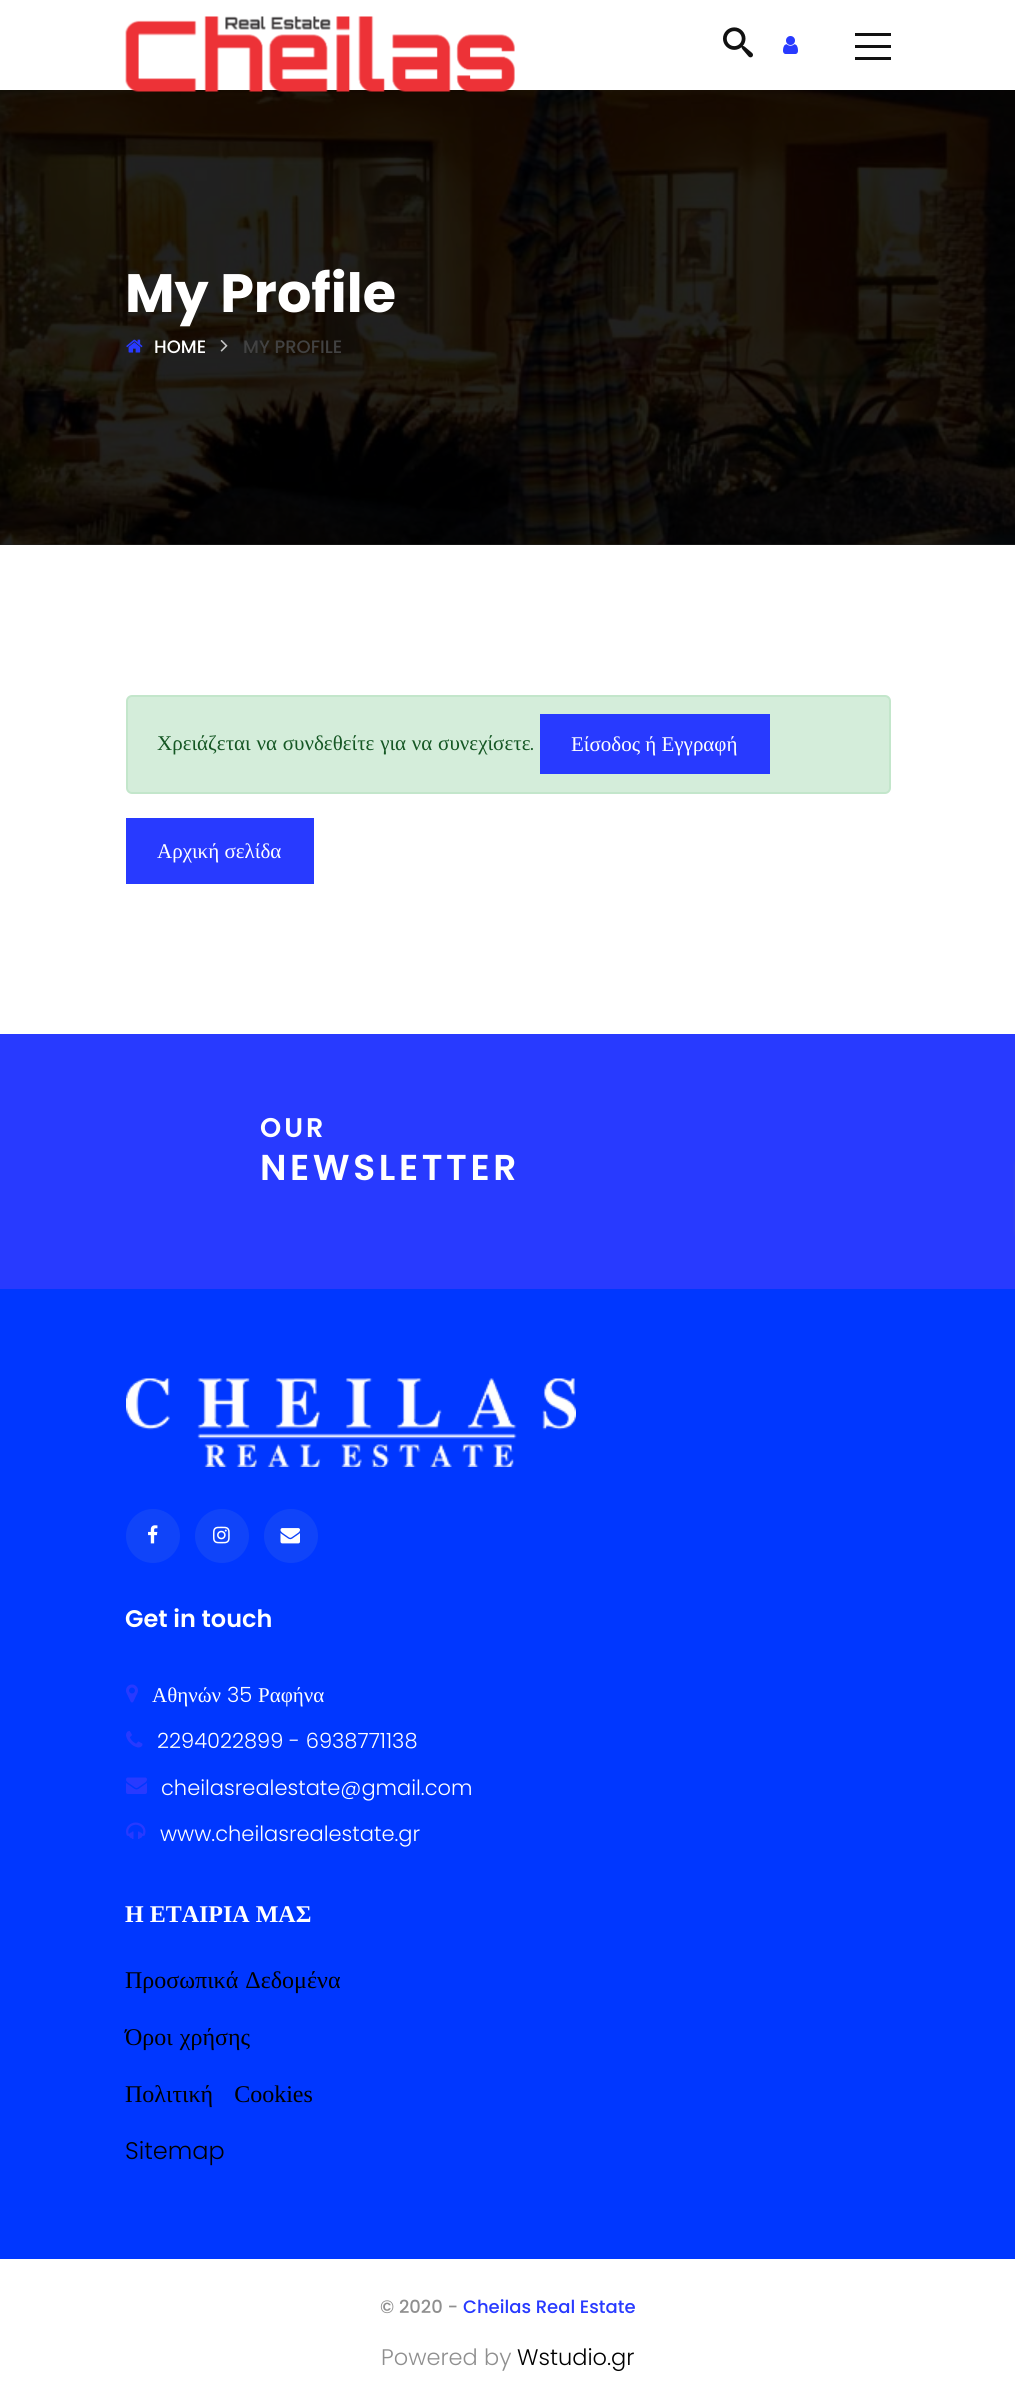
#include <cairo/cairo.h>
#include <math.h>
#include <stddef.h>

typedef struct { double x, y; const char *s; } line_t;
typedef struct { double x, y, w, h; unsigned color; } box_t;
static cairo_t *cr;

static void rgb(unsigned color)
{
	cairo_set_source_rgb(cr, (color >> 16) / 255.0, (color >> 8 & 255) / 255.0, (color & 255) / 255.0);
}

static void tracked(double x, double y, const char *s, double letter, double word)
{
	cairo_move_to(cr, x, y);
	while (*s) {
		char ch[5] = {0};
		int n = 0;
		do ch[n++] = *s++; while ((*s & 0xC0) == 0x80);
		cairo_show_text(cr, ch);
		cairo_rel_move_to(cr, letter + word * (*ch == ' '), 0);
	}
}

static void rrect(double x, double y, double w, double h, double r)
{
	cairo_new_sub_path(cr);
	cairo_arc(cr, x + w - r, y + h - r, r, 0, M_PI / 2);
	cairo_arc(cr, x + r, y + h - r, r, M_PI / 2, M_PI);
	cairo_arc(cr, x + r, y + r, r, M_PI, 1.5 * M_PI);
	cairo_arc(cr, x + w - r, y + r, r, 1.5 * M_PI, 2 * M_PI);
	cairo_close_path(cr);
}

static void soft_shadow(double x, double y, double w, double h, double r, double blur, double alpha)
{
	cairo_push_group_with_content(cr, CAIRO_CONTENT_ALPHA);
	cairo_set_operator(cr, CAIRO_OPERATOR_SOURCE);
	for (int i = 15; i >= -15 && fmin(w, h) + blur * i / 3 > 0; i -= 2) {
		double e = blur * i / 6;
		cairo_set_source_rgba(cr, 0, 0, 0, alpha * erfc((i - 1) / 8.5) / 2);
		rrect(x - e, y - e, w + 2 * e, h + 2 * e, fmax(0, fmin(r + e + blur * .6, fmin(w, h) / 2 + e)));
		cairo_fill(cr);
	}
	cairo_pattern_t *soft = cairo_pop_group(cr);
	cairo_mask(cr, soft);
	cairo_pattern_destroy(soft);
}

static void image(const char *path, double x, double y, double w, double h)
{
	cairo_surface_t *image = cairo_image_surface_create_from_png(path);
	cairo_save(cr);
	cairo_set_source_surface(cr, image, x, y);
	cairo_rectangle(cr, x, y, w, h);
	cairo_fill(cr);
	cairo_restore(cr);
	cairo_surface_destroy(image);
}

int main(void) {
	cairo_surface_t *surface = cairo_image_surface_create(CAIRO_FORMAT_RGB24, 1015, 2394);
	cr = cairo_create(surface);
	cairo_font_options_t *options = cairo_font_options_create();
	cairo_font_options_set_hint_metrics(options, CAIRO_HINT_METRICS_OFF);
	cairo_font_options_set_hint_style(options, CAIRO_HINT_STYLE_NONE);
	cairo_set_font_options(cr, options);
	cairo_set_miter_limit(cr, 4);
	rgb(0xffffff);
	cairo_paint(cr);
	rgb(0x212121);
	cairo_rectangle(cr, 0, 544, 1015, 1);
	cairo_fill(cr);
	image("img/4.png", 0, 90, 1015, 455);
	rgb(0x000000);
	soft_shadow(-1, -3, 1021, 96, 0, 2, 0.1);
	rgb(0xffffff);
	cairo_rectangle(cr, 0, 0, 1015, 90);
	cairo_fill(cr);
	image("img/1.png", 125, 16, 390, 76);
	image("img/2.png", 723, 27, 30, 31);
	image("img/3.png", 783, 36, 15, 18);
	{
		static const box_t items[] = {
			{855, 33, 36, 3, 0x111111},
			{855, 45, 36, 3, 0x111111},
			{855, 57, 36, 3, 0x111111},
		};
		for (size_t i = 0; i < sizeof items / sizeof *items; i++) {
			rgb(items[i].color);
			cairo_rectangle(cr, items[i].x, items[i].y, items[i].w, items[i].h);
			cairo_fill(cr);
		}
	}
	image("img/5.png", 126, 339, 17, 14);
	image("img/6.png", 220, 340, 8, 12);
	rgb(0xd4edda);
	rrect(127, 696, 763, 97, 5);
	cairo_fill_preserve(cr);
	rgb(0xc3e6cb);
	cairo_stroke(cr);
	{
		static const box_t items[] = {
			{540, 714, 230, 60, 0x283aff},
			{126, 818, 188, 66, 0x283aff},
			{0, 1289, 1015, 970, 0x0037ff},
			{0, 1034, 1015, 255, 0x283aff},
		};
		for (size_t i = 0; i < sizeof items / sizeof *items; i++) {
			rgb(items[i].color);
			cairo_rectangle(cr, items[i].x, items[i].y, items[i].w, items[i].h);
			cairo_fill(cr);
		}
	}
	image("img/7.png", 126, 1378, 450, 89);
	rgb(0x1044f9);
	cairo_arc(cr, 153, 1536, 27, 0, 2 * M_PI);
	cairo_fill(cr);
	image("img/8.png", 148, 1525, 10, 19);
	cairo_arc(cr, 222, 1536, 27, 0, 2 * M_PI);
	cairo_fill(cr);
	image("img/9.png", 213, 1526, 17, 18);
	cairo_arc(cr, 291, 1536, 27, 0, 2 * M_PI);
	cairo_fill(cr);
	image("img/10.png", 280, 1528, 20, 16);
	image("img/11.png", 126, 1684, 12, 19);
	image("img/12.png", 126, 1731, 17, 17);
	image("img/13.png", 126, 1777, 21, 17);
	image("img/14.png", 126, 1822, 20, 17);
	rgb(0x777777);
	soft_shadow(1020, 1164, 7, 69, 0, 4, 1);
	cairo_select_font_face(cr, "Poppins", CAIRO_FONT_SLANT_NORMAL, CAIRO_FONT_WEIGHT_BOLD);
	cairo_set_font_size(cr, 54);
	rgb(0xffffff);
	cairo_move_to(cr, 125, 312);
	cairo_show_text(cr, "My Profile");
	cairo_select_font_face(cr, "Poppins Medium", CAIRO_FONT_SLANT_NORMAL, CAIRO_FONT_WEIGHT_NORMAL);
	cairo_set_font_size(cr, 18);
	cairo_move_to(cr, 154, 353);
	cairo_show_text(cr, "HOME");
	rgb(0x424242);
	cairo_move_to(cr, 243, 353);
	cairo_show_text(cr, "MY PROFILE");
	cairo_select_font_face(cr, "Liberation Serif", CAIRO_FONT_SLANT_NORMAL, CAIRO_FONT_WEIGHT_NORMAL);
	cairo_set_font_size(cr, 21);
	rgb(0x155724);
	tracked(157, 750, "Χρειάζεται να συνδεθείτε για να συνεχίσετε", 0, 0.5);
	cairo_select_font_face(cr, "Poppins Light", CAIRO_FONT_SLANT_NORMAL, CAIRO_FONT_WEIGHT_NORMAL);
	cairo_move_to(cr, 530, 750);
	cairo_show_text(cr, ".");
	cairo_select_font_face(cr, "Liberation Serif", CAIRO_FONT_SLANT_NORMAL, CAIRO_FONT_WEIGHT_NORMAL);
	rgb(0xffffff);
	cairo_move_to(cr, 571, 751);
	cairo_show_text(cr, "Είσοδος ή Εγγραφή");
	cairo_move_to(cr, 157, 858);
	cairo_show_text(cr, "Αρχική σελίδα");
	cairo_select_font_face(cr, "Poppins SemiBold", CAIRO_FONT_SLANT_NORMAL, CAIRO_FONT_WEIGHT_NORMAL);
	cairo_set_font_size(cr, 27);
	tracked(260, 1137, "OUR", 3, 0);
	cairo_set_font_size(cr, 36);
	tracked(260, 1180, "NEWSLETTER", 3.6, 0);
	cairo_set_font_size(cr, 24);
	cairo_move_to(cr, 125, 1627);
	cairo_show_text(cr, "Get in touch");
	cairo_select_font_face(cr, "Liberation Serif", CAIRO_FONT_SLANT_NORMAL, CAIRO_FONT_WEIGHT_NORMAL);
	cairo_set_font_size(cr, 21);
	cairo_move_to(cr, 152, 1702);
	cairo_show_text(cr, "Αθηνών");
	cairo_select_font_face(cr, "Poppins Light", CAIRO_FONT_SLANT_NORMAL, CAIRO_FONT_WEIGHT_NORMAL);
	cairo_move_to(cr, 227, 1702);
	cairo_show_text(cr, "35");
	cairo_select_font_face(cr, "Liberation Serif", CAIRO_FONT_SLANT_NORMAL, CAIRO_FONT_WEIGHT_NORMAL);
	cairo_move_to(cr, 258, 1702);
	cairo_show_text(cr, "Ραφήνα");
	cairo_select_font_face(cr, "Poppins Light", CAIRO_FONT_SLANT_NORMAL, CAIRO_FONT_WEIGHT_NORMAL);
	{
		static const line_t items[] = {
			{157, 1748, "2294022899 - 6938771138"},
			{161, 1795, "cheilasrealestate@gmail.com"},
			{160, 1841, "www.cheilasrealestate.gr"},
		};
		for (size_t i = 0; i < sizeof items / sizeof *items; i++) {
			cairo_move_to(cr, items[i].x, items[i].y);
			cairo_show_text(cr, items[i].s);
		}
	}
	cairo_select_font_face(cr, "Liberation Serif", CAIRO_FONT_SLANT_NORMAL, CAIRO_FONT_WEIGHT_BOLD);
	cairo_set_font_size(cr, 24);
	cairo_move_to(cr, 125, 1922);
	cairo_show_text(cr, "Η ΕΤΑΙΡΙΑ ΜΑΣ");
	cairo_select_font_face(cr, "Liberation Serif", CAIRO_FONT_SLANT_NORMAL, CAIRO_FONT_WEIGHT_NORMAL);
	rgb(0x000000);
	tracked(125, 1988, "Προσωπικά Δεδομένα", 0, 1);
	tracked(125, 2045, "Όροι χρήσης", 0, 1);
	tracked(125, 2102, "Πολιτική Cookies", 0, 15);
	cairo_select_font_face(cr, "Poppins Light", CAIRO_FONT_SLANT_NORMAL, CAIRO_FONT_WEIGHT_NORMAL);
	cairo_move_to(cr, 125, 2159);
	cairo_show_text(cr, "Sitemap");
	cairo_select_font_face(cr, "Poppins Medium", CAIRO_FONT_SLANT_NORMAL, CAIRO_FONT_WEIGHT_NORMAL);
	cairo_set_font_size(cr, 18);
	rgb(0x8f8f8f);
	cairo_move_to(cr, 380, 2313);
	cairo_show_text(cr, "© 2020 -");
	rgb(0x283aff);
	cairo_move_to(cr, 463, 2313);
	cairo_show_text(cr, "Cheilas Real Estate");
	cairo_select_font_face(cr, "Poppins Light", CAIRO_FONT_SLANT_NORMAL, CAIRO_FONT_WEIGHT_NORMAL);
	cairo_set_font_size(cr, 22.5);
	rgb(0x8f8f8f);
	cairo_move_to(cr, 381, 2365);
	cairo_show_text(cr, "Powered by");
	rgb(0x000000);
	cairo_move_to(cr, 517, 2365);
	cairo_show_text(cr, "Wstudio.gr");
	cairo_surface_write_to_png(surface, "page.png");
	cairo_font_options_destroy(options);
	cairo_destroy(cr);
	cairo_surface_destroy(surface);
	return 0;
}
